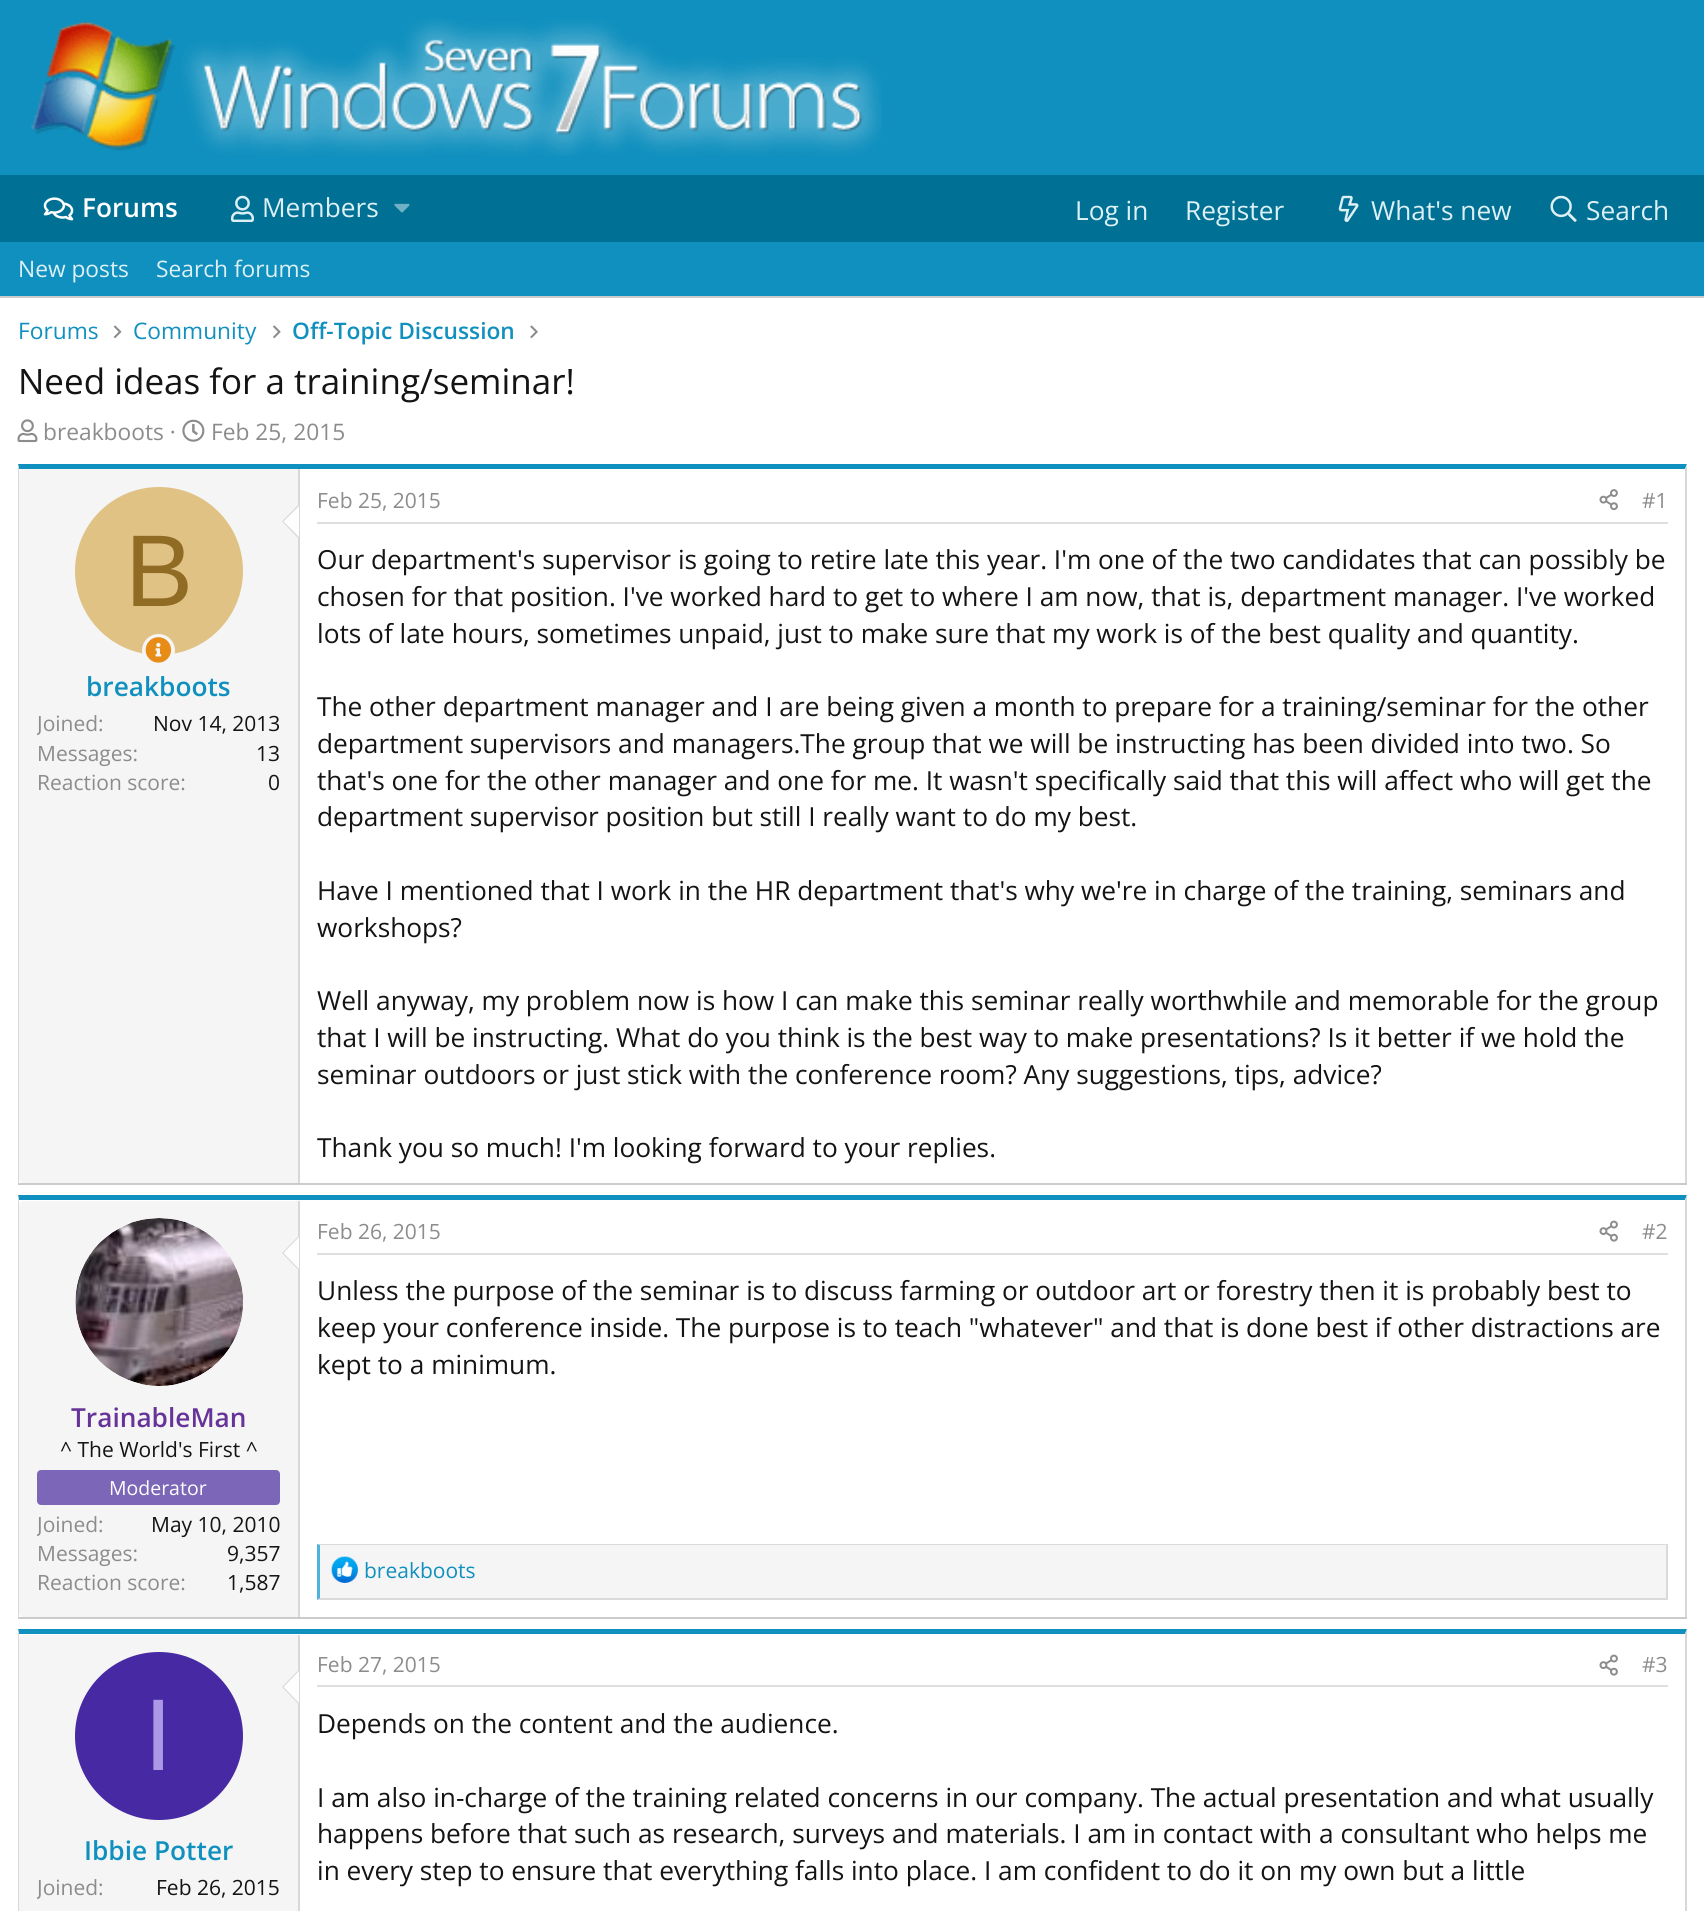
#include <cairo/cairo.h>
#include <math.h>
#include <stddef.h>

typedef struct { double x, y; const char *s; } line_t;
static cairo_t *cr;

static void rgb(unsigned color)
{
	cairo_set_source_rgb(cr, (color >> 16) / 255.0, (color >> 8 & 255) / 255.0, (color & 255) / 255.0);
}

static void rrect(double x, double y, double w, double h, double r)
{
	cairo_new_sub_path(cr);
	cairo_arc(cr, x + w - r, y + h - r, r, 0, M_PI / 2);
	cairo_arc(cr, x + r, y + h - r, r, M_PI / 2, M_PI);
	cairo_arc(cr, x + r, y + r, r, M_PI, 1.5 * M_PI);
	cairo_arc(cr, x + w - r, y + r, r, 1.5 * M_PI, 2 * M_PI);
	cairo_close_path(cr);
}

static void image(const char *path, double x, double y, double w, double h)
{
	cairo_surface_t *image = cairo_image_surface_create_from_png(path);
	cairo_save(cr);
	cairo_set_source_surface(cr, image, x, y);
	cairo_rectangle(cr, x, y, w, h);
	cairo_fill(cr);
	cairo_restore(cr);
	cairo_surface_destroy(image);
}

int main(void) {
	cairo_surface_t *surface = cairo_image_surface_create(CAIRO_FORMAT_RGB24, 1704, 1911);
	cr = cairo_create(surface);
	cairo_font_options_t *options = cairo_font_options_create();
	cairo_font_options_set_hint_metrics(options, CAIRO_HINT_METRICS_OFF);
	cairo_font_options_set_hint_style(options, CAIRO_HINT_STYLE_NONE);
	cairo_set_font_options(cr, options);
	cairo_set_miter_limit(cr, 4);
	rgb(0x1090be);
	cairo_paint(cr);
	image("img/1.png", 31, 19, 851, 137);
	rgb(0x007194);
	cairo_rectangle(cr, 0, 175, 1704, 67);
	cairo_fill(cr);
	image("img/2.png", 43, 197, 31, 24);
	image("img/3.png", 231, 195, 23, 27);
	image("img/4.png", 394, 203, 16, 10);
	image("img/5.png", 1338, 195, 21, 27);
	image("img/6.png", 1550, 195, 27, 27);
	rgb(0xcbcbcb);
	cairo_rectangle(cr, 0, 296, 1704, 2);
	cairo_fill(cr);
	rgb(0xffffff);
	cairo_rectangle(cr, 0, 298, 1704, 1613);
	cairo_fill(cr);
	image("img/7.png", 113, 325, 9, 14);
	image("img/8.png", 273, 325, 8, 14);
	image("img/9.png", 530, 325, 8, 14);
	image("img/10.png", 17, 419, 21, 24);
	image("img/11.png", 182, 419, 23, 23);
	rgb(0x1090be);
	cairo_new_path(cr);
	cairo_move_to(cr, 18, 464);
	cairo_line_to(cr, 1687, 464);
	cairo_line_to(cr, 1685, 469);
	cairo_line_to(cr, 19, 469);
	cairo_close_path(cr);
	cairo_fill(cr);
	rgb(0xd8d8d8);
	cairo_new_path(cr);
	cairo_move_to(cr, 1687, 464);
	cairo_line_to(cr, 1687, 1185);
	cairo_line_to(cr, 1685, 1183);
	cairo_line_to(cr, 1685, 469);
	cairo_close_path(cr);
	cairo_fill(cr);
	rgb(0xcbcbcb);
	cairo_rectangle(cr, 18, 1183, 1669, 2);
	cairo_fill(cr);
	rgb(0xd8d8d8);
	cairo_new_path(cr);
	cairo_move_to(cr, 18, 1185);
	cairo_line_to(cr, 18, 464);
	cairo_line_to(cr, 19, 469);
	cairo_line_to(cr, 19, 1183);
	cairo_close_path(cr);
	cairo_fill(cr);
	rgb(0xf5f5f5);
	cairo_new_path(cr);
	cairo_move_to(cr, 24, 469);
	cairo_line_to(cr, 299, 469);
	cairo_line_to(cr, 299, 1183);
	cairo_line_to(cr, 24, 1183);
	cairo_curve_to(cr, 21, 1183, 19, 1181, 19, 1178);
	cairo_line_to(cr, 19, 474);
	cairo_curve_to(cr, 19, 471, 21, 469, 24, 469);
	cairo_close_path(cr);
	cairo_fill(cr);
	rgb(0xd8d8d8);
	cairo_rectangle(cr, 298, 469, 2, 714);
	cairo_fill(cr);
	cairo_new_path(cr);
	cairo_move_to(cr, 299, 504);
	cairo_line_to(cr, 299, 539);
	cairo_line_to(cr, 282, 521.5);
	cairo_close_path(cr);
	cairo_fill(cr);
	rgb(0xfefefe);
	cairo_new_path(cr);
	cairo_move_to(cr, 299, 506);
	cairo_line_to(cr, 299, 537);
	cairo_line_to(cr, 283.5, 521.5);
	cairo_close_path(cr);
	cairo_fill(cr);
	rgb(0xe0c285);
	cairo_arc(cr, 159, 571, 84, 0, 2 * M_PI);
	cairo_fill(cr);
	rgb(0xf5f5f5);
	cairo_arc(cr, 158.5, 650.5, 14.5, 0, 2 * M_PI);
	cairo_fill_preserve(cr);
	cairo_set_line_width(cr, 4);
	cairo_stroke(cr);
	image("img/12.png", 145, 637, 27, 26);
	rgb(0xdfdfdf);
	cairo_rectangle(cr, 317, 522, 1351, 2);
	cairo_fill(cr);
	image("img/13.png", 1599, 489, 19, 22);
	rgb(0x1090be);
	cairo_new_path(cr);
	cairo_move_to(cr, 18, 1195);
	cairo_line_to(cr, 1687, 1195);
	cairo_line_to(cr, 1685, 1200);
	cairo_line_to(cr, 19, 1200);
	cairo_close_path(cr);
	cairo_fill(cr);
	rgb(0xd8d8d8);
	cairo_new_path(cr);
	cairo_move_to(cr, 1687, 1195);
	cairo_line_to(cr, 1687, 1619);
	cairo_line_to(cr, 1685, 1617);
	cairo_line_to(cr, 1685, 1200);
	cairo_close_path(cr);
	cairo_fill(cr);
	rgb(0xcbcbcb);
	cairo_rectangle(cr, 18, 1617, 1669, 2);
	cairo_fill(cr);
	rgb(0xd8d8d8);
	cairo_new_path(cr);
	cairo_move_to(cr, 18, 1619);
	cairo_line_to(cr, 18, 1195);
	cairo_line_to(cr, 19, 1200);
	cairo_line_to(cr, 19, 1617);
	cairo_close_path(cr);
	cairo_fill(cr);
	rgb(0xf5f5f5);
	cairo_new_path(cr);
	cairo_move_to(cr, 24, 1201);
	cairo_line_to(cr, 299, 1201);
	cairo_line_to(cr, 299, 1617);
	cairo_line_to(cr, 24, 1617);
	cairo_curve_to(cr, 21, 1617, 19, 1615, 19, 1612);
	cairo_line_to(cr, 19, 1206);
	cairo_curve_to(cr, 19, 1203, 21, 1201, 24, 1201);
	cairo_close_path(cr);
	cairo_fill(cr);
	rgb(0xd8d8d8);
	cairo_rectangle(cr, 298, 1201, 2, 416);
	cairo_fill(cr);
	rgb(0xfefefe);
	cairo_arc(cr, 159, 1302, 84, 0, 2 * M_PI);
	cairo_fill(cr);
	image("img/14.png", 75, 1218, 168, 168);
	rgb(0xd8d8d8);
	cairo_new_path(cr);
	cairo_move_to(cr, 299, 1235.5);
	cairo_line_to(cr, 299, 1270.5);
	cairo_line_to(cr, 282, 1253);
	cairo_close_path(cr);
	cairo_fill(cr);
	rgb(0xfefefe);
	cairo_new_path(cr);
	cairo_move_to(cr, 299, 1237);
	cairo_line_to(cr, 299, 1269);
	cairo_line_to(cr, 283.5, 1253);
	cairo_close_path(cr);
	cairo_fill(cr);
	rgb(0x7b66b7);
	rrect(38, 1471, 241, 33, 3);
	cairo_fill_preserve(cr);
	cairo_set_line_width(cr, 2);
	cairo_stroke(cr);
	rgb(0xdfdfdf);
	cairo_rectangle(cr, 317, 1253, 1351, 2);
	cairo_fill(cr);
	image("img/15.png", 1599, 1220, 19, 22);
	rgb(0xf5f5f5);
	cairo_rectangle(cr, 320, 1545, 1346, 53);
	cairo_fill(cr);
	rgb(0xdadada);
	cairo_new_path(cr);
	cairo_move_to(cr, 317, 1544);
	cairo_line_to(cr, 1668, 1544);
	cairo_line_to(cr, 1666, 1545);
	cairo_line_to(cr, 320, 1545);
	cairo_close_path(cr);
	cairo_fill(cr);
	cairo_rectangle(cr, 1666, 1544, 2, 56);
	cairo_fill(cr);
	cairo_new_path(cr);
	cairo_move_to(cr, 1668, 1600);
	cairo_line_to(cr, 317, 1600);
	cairo_line_to(cr, 320, 1598);
	cairo_line_to(cr, 1666, 1598);
	cairo_close_path(cr);
	cairo_fill(cr);
	rgb(0x4db2dd);
	cairo_new_path(cr);
	cairo_move_to(cr, 317, 1600);
	cairo_line_to(cr, 317, 1544);
	cairo_line_to(cr, 320, 1545);
	cairo_line_to(cr, 320, 1598);
	cairo_close_path(cr);
	cairo_fill(cr);
	image("img/16.png", 331, 1556, 27, 27);
	rgb(0x1090be);
	cairo_new_path(cr);
	cairo_move_to(cr, 18, 1629);
	cairo_line_to(cr, 1687, 1629);
	cairo_line_to(cr, 1685, 1634);
	cairo_line_to(cr, 19, 1634);
	cairo_close_path(cr);
	cairo_fill(cr);
	rgb(0xd8d8d8);
	cairo_new_path(cr);
	cairo_move_to(cr, 1687, 1629);
	cairo_line_to(cr, 1687, 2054);
	cairo_line_to(cr, 1685, 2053);
	cairo_line_to(cr, 1685, 1634);
	cairo_close_path(cr);
	cairo_fill(cr);
	cairo_new_path(cr);
	cairo_move_to(cr, 18, 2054);
	cairo_line_to(cr, 18, 1629);
	cairo_line_to(cr, 19, 1634);
	cairo_line_to(cr, 19, 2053);
	cairo_close_path(cr);
	cairo_fill(cr);
	rgb(0xf5f5f5);
	cairo_new_path(cr);
	cairo_move_to(cr, 24, 1635);
	cairo_line_to(cr, 299, 1635);
	cairo_line_to(cr, 299, 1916);
	cairo_line_to(cr, 24, 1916);
	cairo_curve_to(cr, 21, 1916, 19, 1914, 19, 1911);
	cairo_line_to(cr, 19, 1640);
	cairo_curve_to(cr, 19, 1637, 21, 1635, 24, 1635);
	cairo_close_path(cr);
	cairo_fill(cr);
	rgb(0xd8d8d8);
	cairo_rectangle(cr, 298, 1635, 2, 276);
	cairo_fill(cr);
	cairo_new_path(cr);
	cairo_move_to(cr, 299, 1669.5);
	cairo_line_to(cr, 299, 1704.5);
	cairo_line_to(cr, 282, 1687);
	cairo_close_path(cr);
	cairo_fill(cr);
	rgb(0xfefefe);
	cairo_new_path(cr);
	cairo_move_to(cr, 299, 1671);
	cairo_line_to(cr, 299, 1703);
	cairo_line_to(cr, 283.5, 1687);
	cairo_close_path(cr);
	cairo_fill(cr);
	rgb(0x4729a3);
	cairo_arc(cr, 159, 1736, 84, 0, 2 * M_PI);
	cairo_fill(cr);
	rgb(0xdfdfdf);
	cairo_rectangle(cr, 317, 1685, 1351, 2);
	cairo_fill(cr);
	image("img/15.png", 1599, 1654, 19, 22);
	cairo_select_font_face(cr, "Open Sans SemiBold", CAIRO_FONT_SLANT_NORMAL, CAIRO_FONT_WEIGHT_NORMAL);
	cairo_set_font_size(cr, 26.25);
	rgb(0xfefefe);
	cairo_move_to(cr, 82, 217);
	cairo_show_text(cr, "Forums");
	cairo_select_font_face(cr, "Open Sans", CAIRO_FONT_SLANT_NORMAL, CAIRO_FONT_WEIGHT_NORMAL);
	rgb(0xddf0f6);
	{
		static const line_t items[] = {
			{262, 217, "Members"},
			{1075, 220, "Log in"},
			{1185, 220, "Register"},
			{1371, 220, "What's new"},
			{1586, 220, "Search"},
		};
		for (size_t i = 0; i < sizeof items / sizeof *items; i++) {
			cairo_move_to(cr, items[i].x, items[i].y);
			cairo_show_text(cr, items[i].s);
		}
	}
	cairo_set_font_size(cr, 22.75);
	cairo_move_to(cr, 18, 277);
	cairo_show_text(cr, "New posts");
	cairo_move_to(cr, 156, 277);
	cairo_show_text(cr, "Search forums");
	rgb(0x1090be);
	cairo_move_to(cr, 18, 339);
	cairo_show_text(cr, "Forums");
	cairo_move_to(cr, 133, 339);
	cairo_show_text(cr, "Community");
	cairo_select_font_face(cr, "Open Sans SemiBold", CAIRO_FONT_SLANT_NORMAL, CAIRO_FONT_WEIGHT_NORMAL);
	cairo_move_to(cr, 292, 339);
	cairo_show_text(cr, "Off-Topic Discussion");
	cairo_select_font_face(cr, "Open Sans", CAIRO_FONT_SLANT_NORMAL, CAIRO_FONT_WEIGHT_NORMAL);
	cairo_set_font_size(cr, 35);
	rgb(0x141414);
	cairo_move_to(cr, 18, 394);
	cairo_show_text(cr, "Need ideas for a training/seminar!");
	cairo_set_font_size(cr, 22.75);
	rgb(0x8c8c8c);
	cairo_move_to(cr, 43, 440);
	cairo_show_text(cr, "breakboots ·");
	cairo_move_to(cr, 211, 440);
	cairo_show_text(cr, "Feb 25, 2015");
	cairo_select_font_face(cr, "Liberation Sans", CAIRO_FONT_SLANT_NORMAL, CAIRO_FONT_WEIGHT_NORMAL);
	cairo_set_font_size(cr, 102);
	rgb(0x8f6b24);
	cairo_move_to(cr, 125, 606);
	cairo_show_text(cr, "B");
	cairo_select_font_face(cr, "Open Sans SemiBold", CAIRO_FONT_SLANT_NORMAL, CAIRO_FONT_WEIGHT_NORMAL);
	cairo_set_font_size(cr, 26.25);
	rgb(0x1090be);
	cairo_move_to(cr, 86, 696);
	cairo_show_text(cr, "breakboots");
	cairo_save(cr);
	cairo_rectangle(cr, 37, 711, 243, 29);
	cairo_clip(cr);
	cairo_select_font_face(cr, "Open Sans", CAIRO_FONT_SLANT_NORMAL, CAIRO_FONT_WEIGHT_NORMAL);
	cairo_set_font_size(cr, 21);
	rgb(0x8c8c8c);
	cairo_move_to(cr, 37, 731);
	cairo_show_text(cr, "Joined");
	cairo_restore(cr);
	cairo_select_font_face(cr, "Open Sans", CAIRO_FONT_SLANT_NORMAL, CAIRO_FONT_WEIGHT_NORMAL);
	cairo_set_font_size(cr, 21);
	rgb(0x8c8c8c);
	cairo_move_to(cr, 98, 731);
	cairo_show_text(cr, ":");
	rgb(0x141414);
	cairo_move_to(cr, 153, 731);
	cairo_show_text(cr, "Nov 14, 2013");
	rgb(0x8c8c8c);
	cairo_move_to(cr, 37, 761);
	cairo_show_text(cr, "Messages:");
	rgb(0x141414);
	cairo_move_to(cr, 256, 761);
	cairo_show_text(cr, "13");
	rgb(0x8c8c8c);
	cairo_move_to(cr, 37, 790);
	cairo_show_text(cr, "Reaction score:");
	rgb(0x141414);
	cairo_move_to(cr, 268, 790);
	cairo_show_text(cr, "0");
	rgb(0x8c8c8c);
	cairo_move_to(cr, 317, 508);
	cairo_show_text(cr, "Feb 25, 2015");
	cairo_move_to(cr, 1642, 508);
	cairo_show_text(cr, "#1");
	cairo_set_font_size(cr, 26.25);
	rgb(0x141414);
	{
		static const line_t items[] = {
			{317, 569, "Our department's supervisor is going to retire late this year. I'm one of the two candidates that can possibly be"},
			{317, 606, "chosen for that position. I've worked hard to get to where I am now, that is, department manager. I've worked"},
			{317, 643, "lots of late hours, sometimes unpaid, just to make sure that my work is of the best quality and quantity."},
			{317, 716, "The other department manager and I are being given a month to prepare for a training/seminar for the other"},
			{317, 753, "department supervisors and managers.The group that we will be instructing has been divided into two. So"},
			{317, 790, "that's one for the other manager and one for me. It wasn't specifically said that this will affect who will get the"},
			{317, 826, "department supervisor position but still I really want to do my best."},
			{317, 900, "Have I mentioned that I work in the HR department that's why we're in charge of the training, seminars and"},
			{317, 937, "workshops?"},
			{317, 1010, "Well anyway, my problem now is how I can make this seminar really worthwhile and memorable for the group"},
			{317, 1047, "that I will be instructing. What do you think is the best way to make presentations? Is it better if we hold the"},
			{317, 1084, "seminar outdoors or just stick with the conference room? Any suggestions, tips, advice?"},
			{317, 1157, "Thank you so much! I'm looking forward to your replies."},
		};
		for (size_t i = 0; i < sizeof items / sizeof *items; i++) {
			cairo_move_to(cr, items[i].x, items[i].y);
			cairo_show_text(cr, items[i].s);
		}
	}
	cairo_select_font_face(cr, "Open Sans SemiBold", CAIRO_FONT_SLANT_NORMAL, CAIRO_FONT_WEIGHT_NORMAL);
	rgb(0x663399);
	cairo_move_to(cr, 71, 1427);
	cairo_show_text(cr, "TrainableMan");
	cairo_select_font_face(cr, "Open Sans", CAIRO_FONT_SLANT_NORMAL, CAIRO_FONT_WEIGHT_NORMAL);
	cairo_set_font_size(cr, 21);
	rgb(0x141414);
	cairo_move_to(cr, 60, 1457);
	cairo_show_text(cr, "^ The World's First ^");
	cairo_set_font_size(cr, 19.5);
	rgb(0xfefefe);
	cairo_move_to(cr, 109, 1495);
	cairo_show_text(cr, "Moderator");
	cairo_save(cr);
	cairo_rectangle(cr, 37, 1510, 243, 30);
	cairo_clip(cr);
	cairo_set_font_size(cr, 21);
	rgb(0x8c8c8c);
	cairo_move_to(cr, 37, 1532);
	cairo_show_text(cr, "Joined");
	cairo_restore(cr);
	cairo_set_font_size(cr, 21);
	rgb(0x8c8c8c);
	cairo_move_to(cr, 98, 1532);
	cairo_show_text(cr, ":");
	rgb(0x141414);
	cairo_move_to(cr, 151, 1532);
	cairo_show_text(cr, "May 10, 2010");
	rgb(0x8c8c8c);
	cairo_move_to(cr, 37, 1561);
	cairo_show_text(cr, "Messages:");
	rgb(0x141414);
	cairo_move_to(cr, 227, 1561);
	cairo_show_text(cr, "9,357");
	rgb(0x8c8c8c);
	cairo_move_to(cr, 37, 1590);
	cairo_show_text(cr, "Reaction score:");
	rgb(0x141414);
	cairo_move_to(cr, 227, 1590);
	cairo_show_text(cr, "1,587");
	rgb(0x8c8c8c);
	cairo_move_to(cr, 317, 1239);
	cairo_show_text(cr, "Feb 26, 2015");
	cairo_move_to(cr, 1642, 1239);
	cairo_show_text(cr, "#2");
	cairo_set_font_size(cr, 26.25);
	rgb(0x141414);
	{
		static const line_t items[] = {
			{317, 1300, "Unless the purpose of the seminar is to discuss farming or outdoor art or forestry then it is probably best to"},
			{317, 1337, "keep your conference inside. The purpose is to teach \"whatever\" and that is done best if other distractions are"},
			{317, 1374, "kept to a minimum."},
		};
		for (size_t i = 0; i < sizeof items / sizeof *items; i++) {
			cairo_move_to(cr, items[i].x, items[i].y);
			cairo_show_text(cr, items[i].s);
		}
	}
	cairo_set_font_size(cr, 21);
	rgb(0x1090be);
	cairo_move_to(cr, 364, 1578);
	cairo_show_text(cr, "breakboots");
	cairo_select_font_face(cr, "Liberation Sans", CAIRO_FONT_SLANT_NORMAL, CAIRO_FONT_WEIGHT_NORMAL);
	cairo_set_font_size(cr, 102);
	rgb(0xac99e6);
	cairo_move_to(cr, 144, 1770);
	cairo_show_text(cr, "I");
	cairo_select_font_face(cr, "Open Sans SemiBold", CAIRO_FONT_SLANT_NORMAL, CAIRO_FONT_WEIGHT_NORMAL);
	cairo_set_font_size(cr, 26.25);
	rgb(0x1090be);
	cairo_move_to(cr, 84, 1860);
	cairo_show_text(cr, "Ibbie Potter");
	cairo_save(cr);
	cairo_rectangle(cr, 37, 1874, 243, 30);
	cairo_clip(cr);
	cairo_select_font_face(cr, "Open Sans", CAIRO_FONT_SLANT_NORMAL, CAIRO_FONT_WEIGHT_NORMAL);
	cairo_set_font_size(cr, 21);
	rgb(0x8c8c8c);
	cairo_move_to(cr, 37, 1895);
	cairo_show_text(cr, "Joined");
	cairo_restore(cr);
	cairo_select_font_face(cr, "Open Sans", CAIRO_FONT_SLANT_NORMAL, CAIRO_FONT_WEIGHT_NORMAL);
	cairo_set_font_size(cr, 21);
	rgb(0x8c8c8c);
	cairo_move_to(cr, 98, 1895);
	cairo_show_text(cr, ":");
	rgb(0x141414);
	cairo_move_to(cr, 156, 1895);
	cairo_show_text(cr, "Feb 26, 2015");
	rgb(0x8c8c8c);
	cairo_move_to(cr, 317, 1672);
	cairo_show_text(cr, "Feb 27, 2015");
	cairo_move_to(cr, 1642, 1672);
	cairo_show_text(cr, "#3");
	cairo_set_font_size(cr, 26.25);
	rgb(0x141414);
	{
		static const line_t items[] = {
			{317, 1733, "Depends on the content and the audience."},
			{317, 1807, "I am also in-charge of the training related concerns in our company. The actual presentation and what usually"},
			{317, 1843, "happens before that such as research, surveys and materials. I am in contact with a consultant who helps me"},
			{317, 1880, "in every step to ensure that everything falls into place. I am confident to do it on my own but a little"},
		};
		for (size_t i = 0; i < sizeof items / sizeof *items; i++) {
			cairo_move_to(cr, items[i].x, items[i].y);
			cairo_show_text(cr, items[i].s);
		}
	}
	cairo_surface_write_to_png(surface, "page.png");
	cairo_font_options_destroy(options);
	cairo_destroy(cr);
	cairo_surface_destroy(surface);
	return 0;
}
